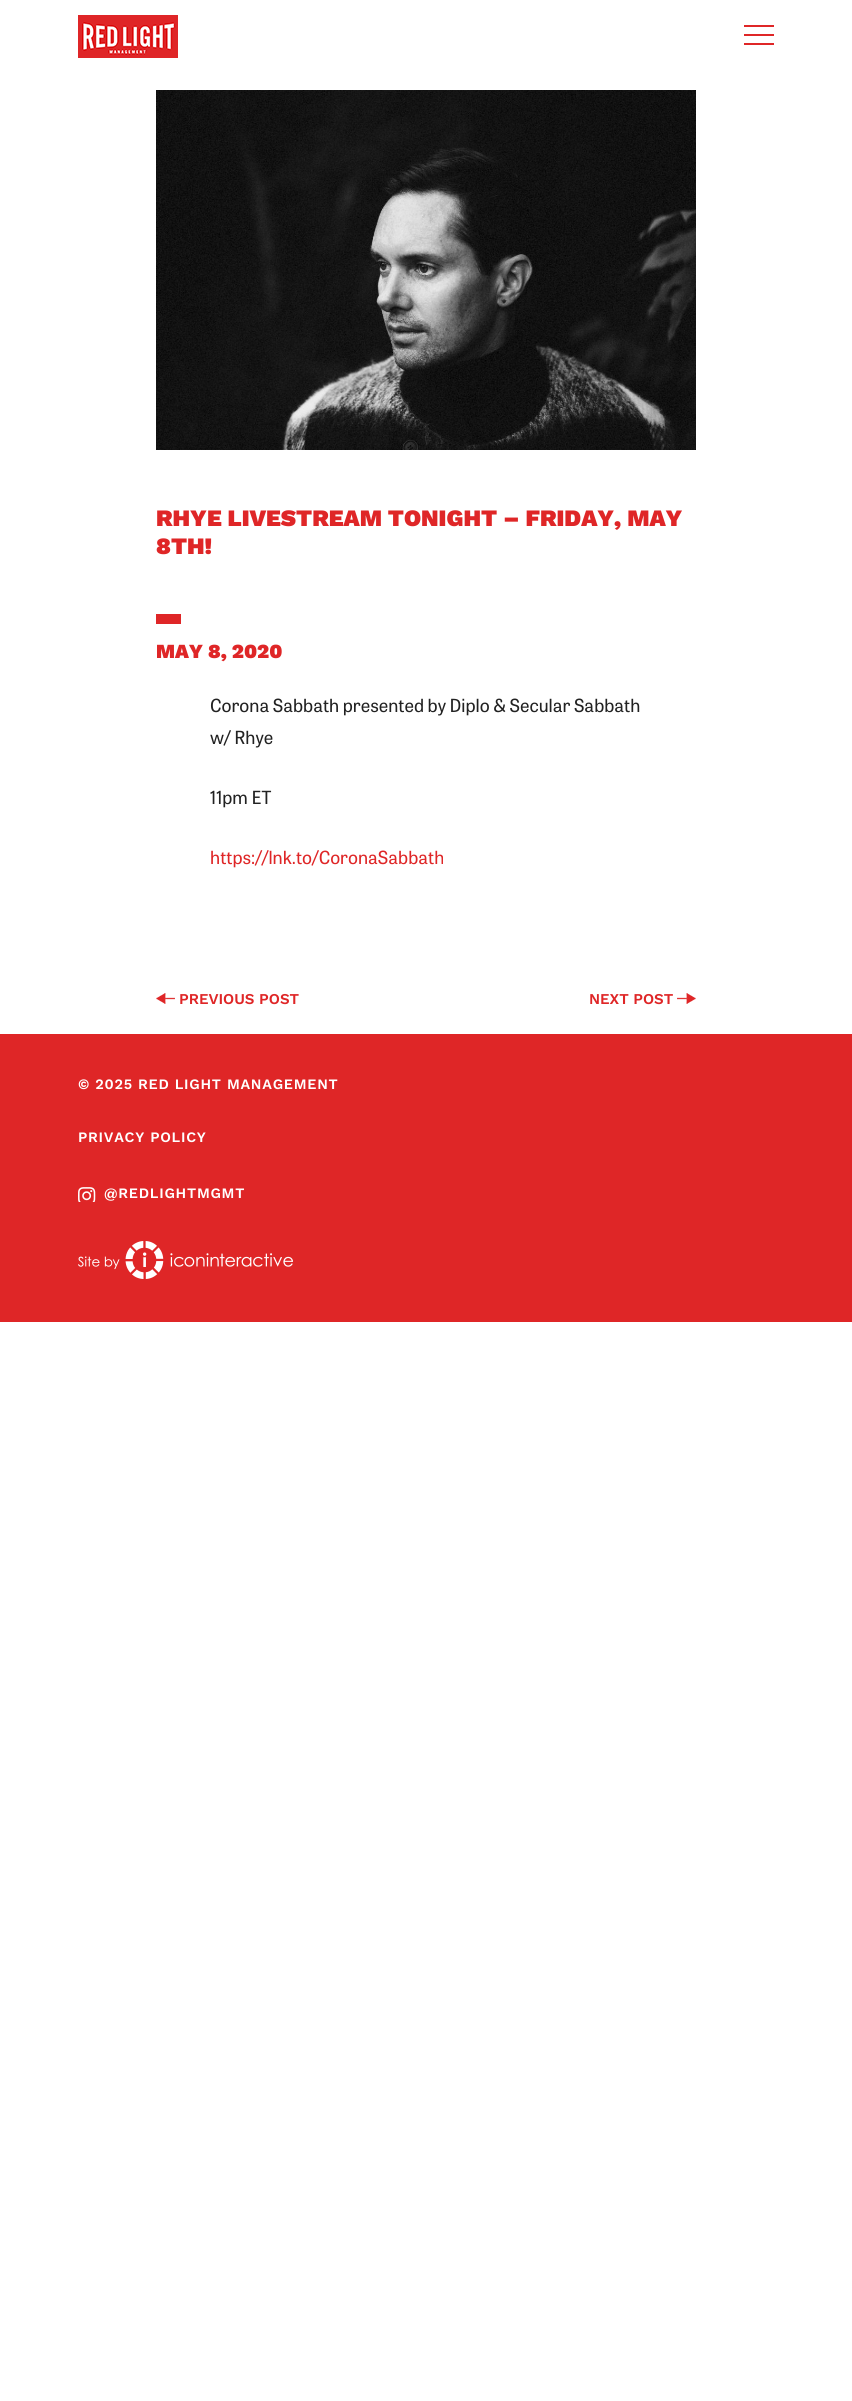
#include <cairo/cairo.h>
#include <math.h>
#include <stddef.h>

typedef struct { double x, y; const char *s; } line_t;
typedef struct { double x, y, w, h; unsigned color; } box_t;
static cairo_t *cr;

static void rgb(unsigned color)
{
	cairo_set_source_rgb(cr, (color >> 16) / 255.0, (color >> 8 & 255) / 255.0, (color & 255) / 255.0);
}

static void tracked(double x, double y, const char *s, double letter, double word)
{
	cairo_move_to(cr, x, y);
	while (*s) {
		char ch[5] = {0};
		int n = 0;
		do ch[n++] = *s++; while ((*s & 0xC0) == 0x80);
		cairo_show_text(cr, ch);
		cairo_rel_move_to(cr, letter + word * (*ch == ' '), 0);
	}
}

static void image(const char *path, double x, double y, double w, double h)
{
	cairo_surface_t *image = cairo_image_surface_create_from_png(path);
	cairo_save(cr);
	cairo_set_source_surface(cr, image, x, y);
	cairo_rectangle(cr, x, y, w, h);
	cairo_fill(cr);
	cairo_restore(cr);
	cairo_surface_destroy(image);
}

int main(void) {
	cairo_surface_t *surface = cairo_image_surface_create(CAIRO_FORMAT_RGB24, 852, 2401);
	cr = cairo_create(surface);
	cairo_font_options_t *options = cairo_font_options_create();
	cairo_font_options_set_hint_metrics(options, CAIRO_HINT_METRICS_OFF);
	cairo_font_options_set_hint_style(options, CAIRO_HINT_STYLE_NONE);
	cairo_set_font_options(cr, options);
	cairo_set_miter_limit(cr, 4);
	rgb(0xffffff);
	cairo_paint(cr);
	image("img/1.png", 78, 15, 100, 43);
	{
		static const box_t items[] = {
			{744, 25, 30, 2, 0xdf2627},
			{744, 34, 30, 2, 0xdf2627},
			{744, 43, 30, 2, 0xdf2627},
		};
		for (size_t i = 0; i < sizeof items / sizeof *items; i++) {
			rgb(items[i].color);
			cairo_rectangle(cr, items[i].x, items[i].y, items[i].w, items[i].h);
			cairo_fill(cr);
		}
	}
	image("img/2.png", 156, 90, 540, 360);
	cairo_rectangle(cr, 156, 614, 25, 10);
	cairo_fill(cr);
	image("img/3.png", 156, 993, 19, 11);
	image("img/4.png", 677, 993, 19, 11);
	cairo_rectangle(cr, 0, 1034, 852, 288);
	cairo_fill(cr);
	image("img/5.png", 78, 1187, 18, 15);
	image("img/6.png", 78, 1241, 215, 38);
	cairo_select_font_face(cr, "Work Sans Black", CAIRO_FONT_SLANT_NORMAL, CAIRO_FONT_WEIGHT_NORMAL);
	cairo_set_font_size(cr, 23.5);
	cairo_move_to(cr, 156, 526);
	cairo_show_text(cr, "RHYE LIVESTREAM TONIGHT – FRIDAY, MAY");
	cairo_move_to(cr, 156, 554);
	cairo_show_text(cr, "8TH!");
	cairo_set_font_size(cr, 20);
	cairo_move_to(cr, 156, 658);
	cairo_show_text(cr, "MAY 8, 2020");
	cairo_select_font_face(cr, "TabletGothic", CAIRO_FONT_SLANT_NORMAL, CAIRO_FONT_WEIGHT_NORMAL);
	cairo_set_font_size(cr, 18);
	rgb(0x222222);
	{
		static const line_t items[] = {
			{210, 712, "Corona Sabbath presented by Diplo & Secular Sabbath"},
			{210, 744, "w/ Rhye"},
			{210, 804, "11pm ET"},
		};
		for (size_t i = 0; i < sizeof items / sizeof *items; i++) {
			cairo_move_to(cr, items[i].x, items[i].y);
			cairo_show_text(cr, items[i].s);
		}
	}
	rgb(0xdf2627);
	cairo_move_to(cr, 210, 864);
	cairo_show_text(cr, "https://lnk.to/CoronaSabbath");
	cairo_select_font_face(cr, "Work Sans SemiBold", CAIRO_FONT_SLANT_NORMAL, CAIRO_FONT_WEIGHT_NORMAL);
	cairo_set_font_size(cr, 15);
	cairo_move_to(cr, 179, 1004);
	cairo_show_text(cr, "PREVIOUS POST");
	cairo_move_to(cr, 589, 1004);
	cairo_show_text(cr, "NEXT POST");
	cairo_set_font_size(cr, 14.4);
	rgb(0xffffff);
	{
		static const line_t items[] = {
			{78, 1089, "© 2025 RED LIGHT MANAGEMENT"},
			{78, 1142, "PRIVACY POLICY"},
			{104, 1198, "@REDLIGHTMGMT"},
		};
		for (size_t i = 0; i < sizeof items / sizeof *items; i++) {
			tracked(items[i].x, items[i].y, items[i].s, 0.75, 0);
		}
	}
	cairo_surface_write_to_png(surface, "page.png");
	cairo_font_options_destroy(options);
	cairo_destroy(cr);
	cairo_surface_destroy(surface);
	return 0;
}
